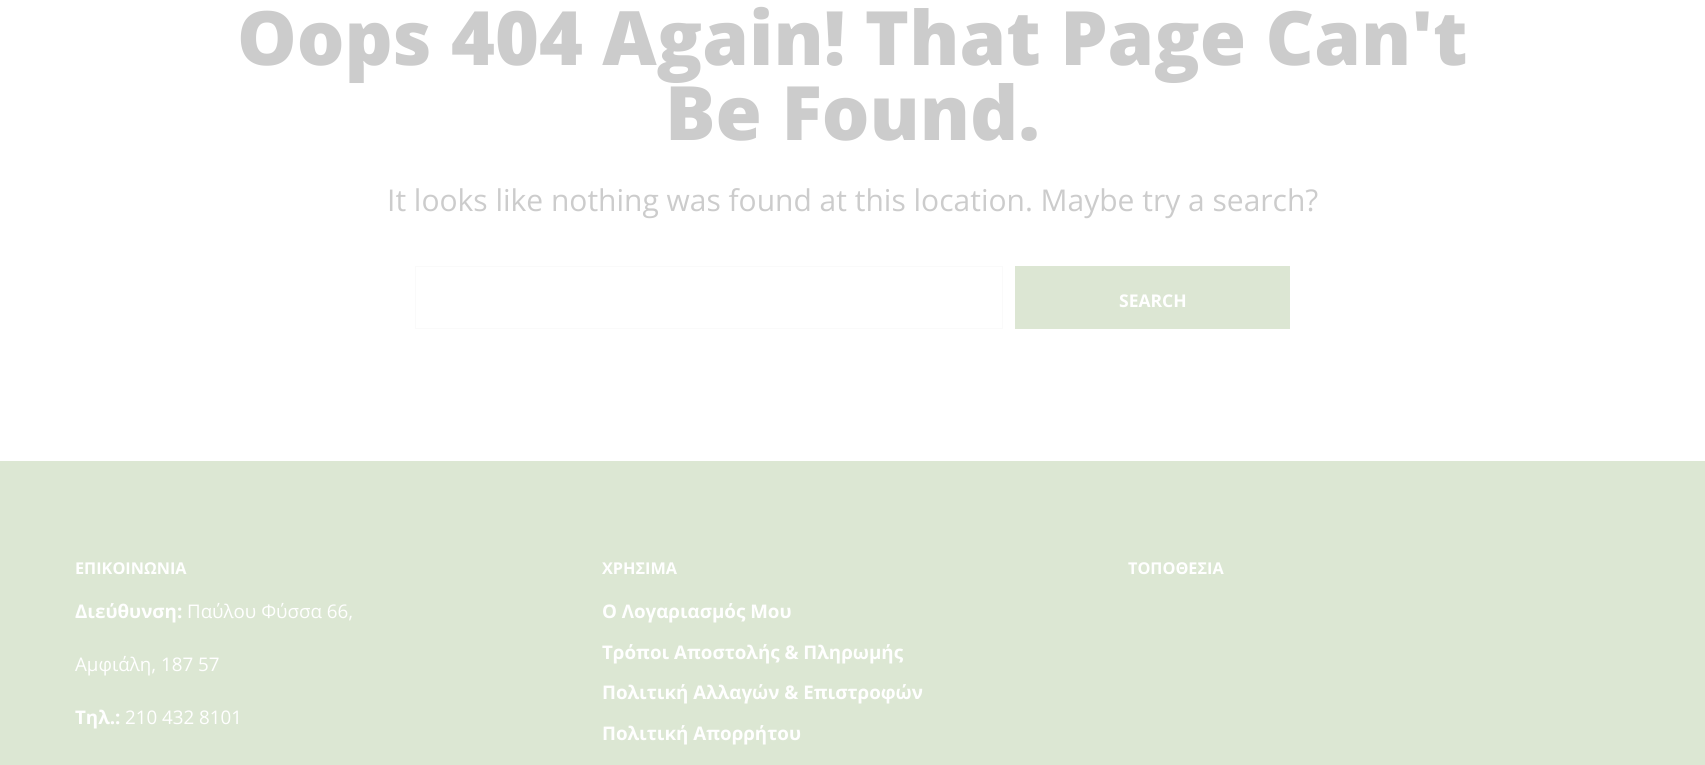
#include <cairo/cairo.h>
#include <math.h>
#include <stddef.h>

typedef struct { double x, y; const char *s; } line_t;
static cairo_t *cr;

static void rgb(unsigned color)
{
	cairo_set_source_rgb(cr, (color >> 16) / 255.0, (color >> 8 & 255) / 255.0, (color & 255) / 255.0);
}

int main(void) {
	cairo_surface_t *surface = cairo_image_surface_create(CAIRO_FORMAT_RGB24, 1705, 765);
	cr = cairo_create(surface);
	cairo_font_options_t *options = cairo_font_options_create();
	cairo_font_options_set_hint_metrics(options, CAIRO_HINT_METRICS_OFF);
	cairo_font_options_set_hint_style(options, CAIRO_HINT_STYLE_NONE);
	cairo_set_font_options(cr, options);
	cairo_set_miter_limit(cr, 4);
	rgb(0xffffff);
	cairo_paint(cr);
	cairo_rectangle(cr, 415.5, 266.5, 587, 62);
	rgb(0xfafafa);
	cairo_set_line_width(cr, 1);
	cairo_stroke(cr);
	rgb(0xdce6d3);
	cairo_rectangle(cr, 1015, 266, 275, 63);
	cairo_fill(cr);
	rgb(0xdce7d3);
	cairo_rectangle(cr, 0, 461, 1705, 304);
	cairo_fill(cr);
	cairo_select_font_face(cr, "Open Sans ExtraBold", CAIRO_FONT_SLANT_NORMAL, CAIRO_FONT_WEIGHT_NORMAL);
	cairo_set_font_size(cr, 75);
	rgb(0xcccccc);
	cairo_move_to(cr, 237, 65);
	cairo_show_text(cr, "Oops 404 Again! That Page Can't");
	cairo_move_to(cr, 665, 140);
	cairo_show_text(cr, "Be Found.");
	cairo_select_font_face(cr, "Open Sans", CAIRO_FONT_SLANT_NORMAL, CAIRO_FONT_WEIGHT_NORMAL);
	cairo_set_font_size(cr, 30);
	cairo_move_to(cr, 387, 211);
	cairo_show_text(cr, "It looks like nothing was found at this location. Maybe try a search?");
	cairo_select_font_face(cr, "Open Sans", CAIRO_FONT_SLANT_NORMAL, CAIRO_FONT_WEIGHT_BOLD);
	cairo_set_font_size(cr, 17.5);
	rgb(0xffffff);
	cairo_move_to(cr, 1119, 307);
	cairo_show_text(cr, "SEARCH");
	cairo_set_font_size(cr, 16.25);
	cairo_move_to(cr, 75, 574);
	cairo_show_text(cr, "ΕΠΙΚΟΙΝΩΝΙΑ");
	cairo_set_font_size(cr, 18.75);
	cairo_move_to(cr, 75, 618);
	cairo_show_text(cr, "Διεύθυνση:");
	cairo_select_font_face(cr, "Open Sans", CAIRO_FONT_SLANT_NORMAL, CAIRO_FONT_WEIGHT_NORMAL);
	cairo_move_to(cr, 187, 618);
	cairo_show_text(cr, "Παύλου Φύσσα 66,");
	cairo_move_to(cr, 75, 671);
	cairo_show_text(cr, "Αμφιάλη, 187 57");
	cairo_select_font_face(cr, "Open Sans", CAIRO_FONT_SLANT_NORMAL, CAIRO_FONT_WEIGHT_BOLD);
	cairo_move_to(cr, 75, 724);
	cairo_show_text(cr, "Τηλ.:");
	cairo_select_font_face(cr, "Open Sans", CAIRO_FONT_SLANT_NORMAL, CAIRO_FONT_WEIGHT_NORMAL);
	cairo_move_to(cr, 125, 724);
	cairo_show_text(cr, "210 432 8101");
	cairo_select_font_face(cr, "Open Sans", CAIRO_FONT_SLANT_NORMAL, CAIRO_FONT_WEIGHT_BOLD);
	cairo_set_font_size(cr, 16.25);
	cairo_move_to(cr, 602, 574);
	cairo_show_text(cr, "ΧΡΗΣΙΜΑ");
	cairo_set_font_size(cr, 18.75);
	{
		static const line_t items[] = {
			{602, 618, "Ο Λογαριασμός Μου"},
			{602, 659, "Τρόποι Αποστολής & Πληρωμής"},
			{602, 699, "Πολιτική Αλλαγών & Επιστροφών"},
			{602, 740, "Πολιτική Απορρήτου"},
		};
		for (size_t i = 0; i < sizeof items / sizeof *items; i++) {
			cairo_move_to(cr, items[i].x, items[i].y);
			cairo_show_text(cr, items[i].s);
		}
	}
	cairo_set_font_size(cr, 16.25);
	cairo_move_to(cr, 1128, 574);
	cairo_show_text(cr, "ΤΟΠΟΘΕΣΙΑ");
	cairo_surface_write_to_png(surface, "page.png");
	cairo_font_options_destroy(options);
	cairo_destroy(cr);
	cairo_surface_destroy(surface);
	return 0;
}
